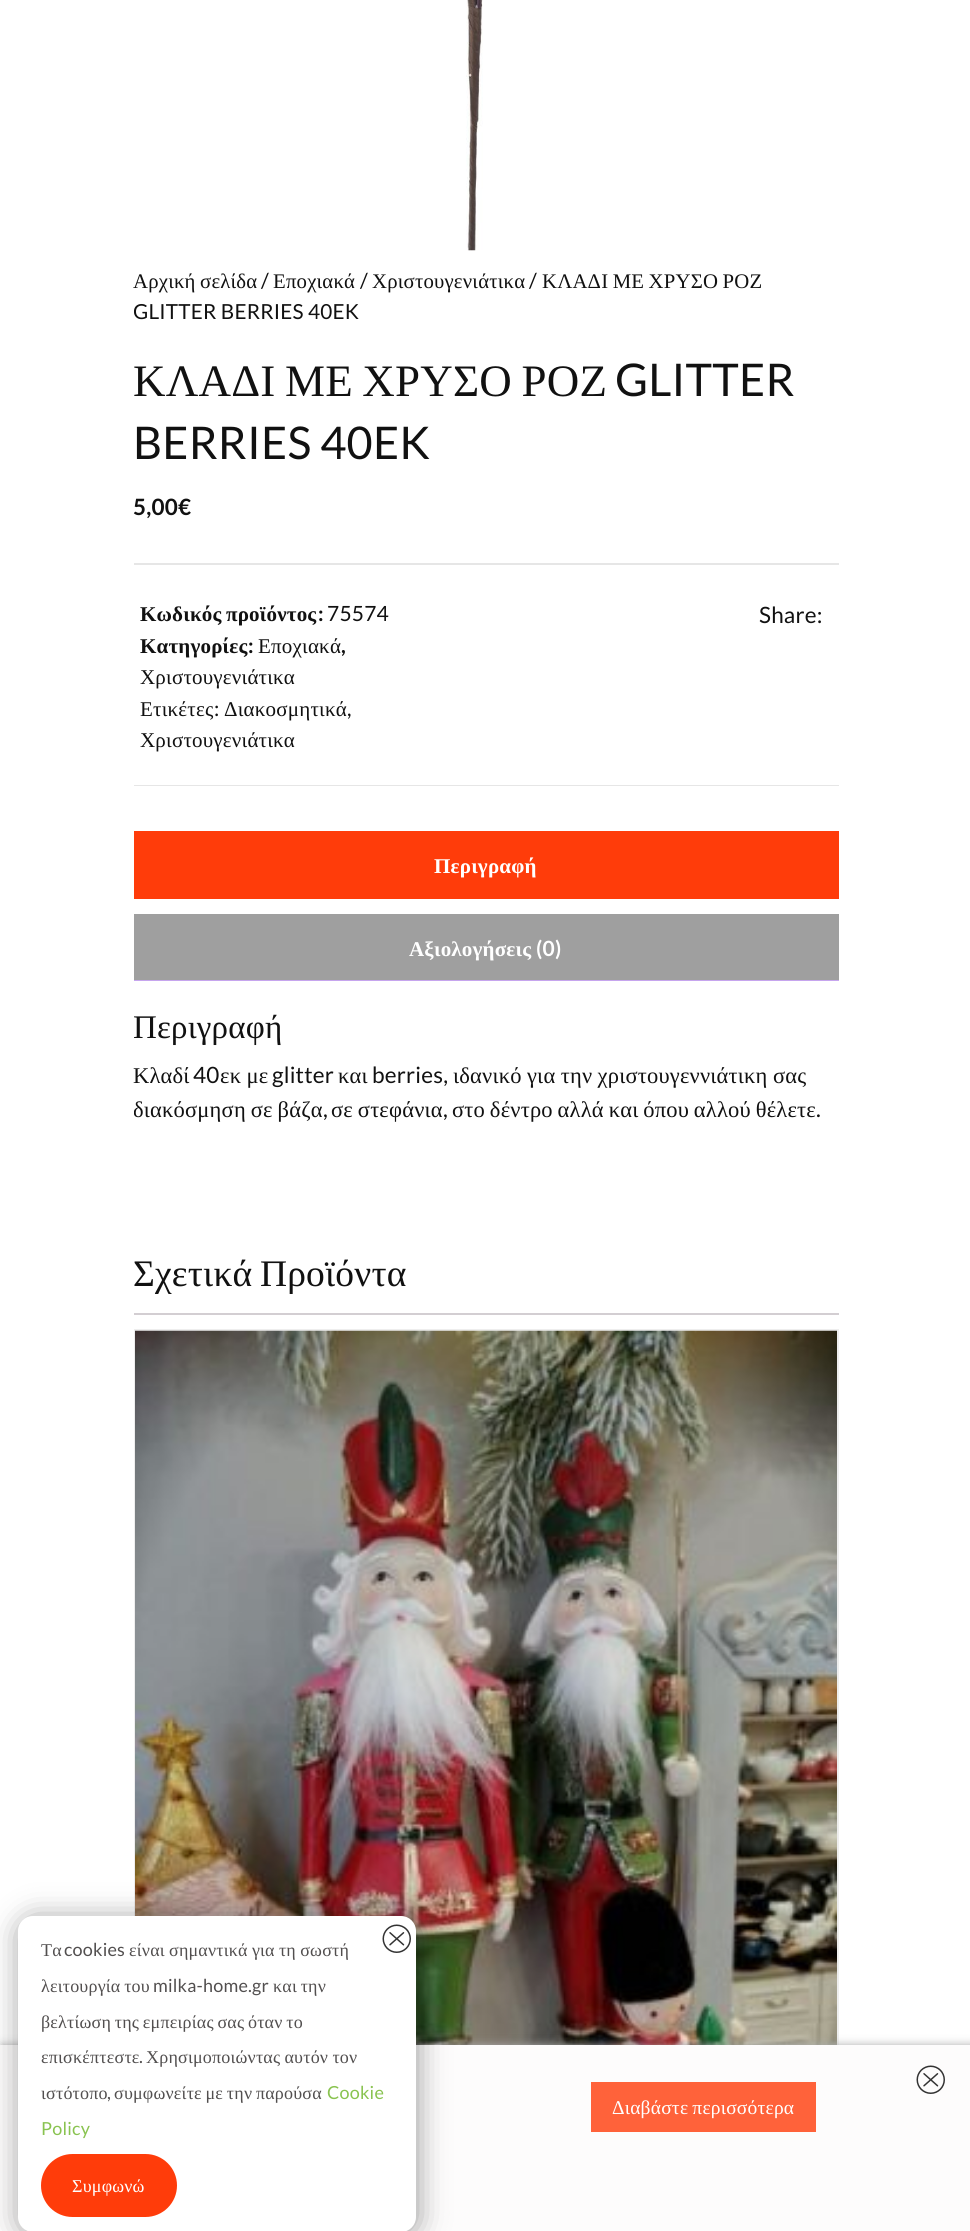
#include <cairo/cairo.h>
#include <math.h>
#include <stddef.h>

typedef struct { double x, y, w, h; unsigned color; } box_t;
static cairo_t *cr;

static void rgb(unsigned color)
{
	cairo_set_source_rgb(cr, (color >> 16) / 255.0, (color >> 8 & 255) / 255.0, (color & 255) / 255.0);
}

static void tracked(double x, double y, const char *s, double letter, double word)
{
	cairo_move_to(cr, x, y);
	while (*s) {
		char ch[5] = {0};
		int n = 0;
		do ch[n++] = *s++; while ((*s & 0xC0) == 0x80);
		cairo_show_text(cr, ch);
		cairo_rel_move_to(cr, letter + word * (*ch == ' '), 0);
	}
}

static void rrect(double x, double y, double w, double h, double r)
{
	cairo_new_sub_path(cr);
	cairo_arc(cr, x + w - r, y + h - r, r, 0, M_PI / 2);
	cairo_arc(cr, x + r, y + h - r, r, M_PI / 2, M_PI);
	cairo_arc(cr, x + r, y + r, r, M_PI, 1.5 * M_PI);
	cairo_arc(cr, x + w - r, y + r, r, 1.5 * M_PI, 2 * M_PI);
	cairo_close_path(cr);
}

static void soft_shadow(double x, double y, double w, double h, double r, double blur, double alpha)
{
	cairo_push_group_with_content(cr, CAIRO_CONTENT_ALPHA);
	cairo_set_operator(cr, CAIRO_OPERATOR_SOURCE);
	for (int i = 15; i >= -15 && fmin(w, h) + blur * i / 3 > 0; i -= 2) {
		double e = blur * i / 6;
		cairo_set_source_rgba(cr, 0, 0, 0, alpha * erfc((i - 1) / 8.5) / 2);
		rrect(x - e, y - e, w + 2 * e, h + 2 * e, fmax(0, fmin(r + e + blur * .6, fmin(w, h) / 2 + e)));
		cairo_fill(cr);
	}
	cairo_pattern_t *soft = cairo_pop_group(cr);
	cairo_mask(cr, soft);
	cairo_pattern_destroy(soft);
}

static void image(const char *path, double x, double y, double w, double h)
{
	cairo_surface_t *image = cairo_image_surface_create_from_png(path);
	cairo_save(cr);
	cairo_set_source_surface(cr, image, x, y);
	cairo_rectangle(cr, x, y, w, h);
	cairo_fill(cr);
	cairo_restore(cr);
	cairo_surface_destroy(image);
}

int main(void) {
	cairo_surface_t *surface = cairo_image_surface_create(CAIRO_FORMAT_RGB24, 970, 2231);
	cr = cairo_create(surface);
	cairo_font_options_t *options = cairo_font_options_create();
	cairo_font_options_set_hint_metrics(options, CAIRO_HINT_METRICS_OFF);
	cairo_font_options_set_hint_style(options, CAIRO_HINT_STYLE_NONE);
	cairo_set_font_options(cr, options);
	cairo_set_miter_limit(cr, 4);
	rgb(0xffffff);
	cairo_paint(cr);
	image("img/1.png", 466, 0, 17, 251);
	{
		static const box_t items[] = {
			{134, 563, 705, 2, 0xe6e6e6},
			{134, 785, 705, 1, 0xe6e6e6},
			{134, 831, 705, 68, 0xff3c0a},
			{134, 914, 705, 66, 0x9f9f9f},
			{134, 980, 705, 1, 0xc6a5ee},
			{134, 1313, 705, 2, 0xd3ced2},
		};
		for (size_t i = 0; i < sizeof items / sizeof *items; i++) {
			rgb(items[i].color);
			cairo_rectangle(cr, items[i].x, items[i].y, items[i].w, items[i].h);
			cairo_fill(cr);
		}
	}
	cairo_rectangle(cr, 135, 1330, 703, 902);
	rgb(0xeeeeee);
	cairo_stroke(cr);
	image("img/2.png", 135, 1330, 702, 715);
	rgb(0xadadad);
	soft_shadow(2, 2045, 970, 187, 0, 4.5, 1);
	rgb(0xfdfcfc);
	cairo_rectangle(cr, 0, 2045, 970, 186);
	cairo_fill(cr);
	rgb(0x000000);
	soft_shadow(20, 1919, 397, 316, 15, 15, 0.4);
	rgb(0xffffff);
	rrect(18, 1916, 398, 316, 15);
	cairo_fill(cr);
	image("img/3.png", 382, 1924, 29, 29);
	rgb(0xff3c0a);
	rrect(42, 2155, 134, 61, 30.5);
	cairo_fill_preserve(cr);
	cairo_stroke(cr);
	image("img/4.png", 916, 2065, 29, 29);
	rgb(0xff623a);
	cairo_rectangle(cr, 591, 2082, 225, 50);
	cairo_fill(cr);
	cairo_select_font_face(cr, "Liberation Serif", CAIRO_FONT_SLANT_NORMAL, CAIRO_FONT_WEIGHT_NORMAL);
	cairo_set_font_size(cr, 20.75);
	rgb(0x111111);
	tracked(133, 288, "Αρχική σελίδα", 0.2, -1);
	cairo_select_font_face(cr, "Lato", CAIRO_FONT_SLANT_NORMAL, CAIRO_FONT_WEIGHT_NORMAL);
	tracked(261, 288, "/", 0.2, 0);
	cairo_select_font_face(cr, "Liberation Serif", CAIRO_FONT_SLANT_NORMAL, CAIRO_FONT_WEIGHT_NORMAL);
	tracked(273, 288, "Εποχιακά", 0.2, 0);
	cairo_select_font_face(cr, "Lato", CAIRO_FONT_SLANT_NORMAL, CAIRO_FONT_WEIGHT_NORMAL);
	tracked(360, 288, "/", 0.2, 0);
	cairo_select_font_face(cr, "Liberation Serif", CAIRO_FONT_SLANT_NORMAL, CAIRO_FONT_WEIGHT_NORMAL);
	tracked(372, 288, "Χριστουγενιάτικα", 0.2, 0);
	cairo_select_font_face(cr, "Lato", CAIRO_FONT_SLANT_NORMAL, CAIRO_FONT_WEIGHT_NORMAL);
	tracked(529, 288, "/", 0.2, 0);
	cairo_select_font_face(cr, "Liberation Serif", CAIRO_FONT_SLANT_NORMAL, CAIRO_FONT_WEIGHT_NORMAL);
	tracked(542, 288, "ΚΛΑΔΙ ΜΕ ΧΡΥΣΟ ΡΟΖ", 0.2, -1);
	cairo_save(cr);
	cairo_rectangle(cr, 134, 0, 705, 786);
	cairo_clip(cr);
	cairo_select_font_face(cr, "Lato", CAIRO_FONT_SLANT_NORMAL, CAIRO_FONT_WEIGHT_NORMAL);
	tracked(133, 319, "GLITTER BERRIES 40EK", 0.2, 0);
	cairo_restore(cr);
	cairo_set_font_size(cr, 45);
	tracked(133, 396, "ΚΛΑΔΙ ΜΕ ΧΡΥΣΟ ΡΟΖ", 0.2, -2);
	cairo_select_font_face(cr, "Lato", CAIRO_FONT_SLANT_NORMAL, CAIRO_FONT_WEIGHT_NORMAL);
	tracked(615, 396, "GLITTER", 0.2, 0);
	tracked(133, 459, "BERRIES 40EK", 0.2, 0);
	cairo_select_font_face(cr, "Lato", CAIRO_FONT_SLANT_NORMAL, CAIRO_FONT_WEIGHT_BOLD);
	cairo_set_font_size(cr, 22.5);
	tracked(133, 515, "5,00€", 0.2, 0);
	cairo_select_font_face(cr, "Liberation Serif", CAIRO_FONT_SLANT_NORMAL, CAIRO_FONT_WEIGHT_BOLD);
	cairo_set_font_size(cr, 21);
	tracked(140, 621, "Κωδικός προϊόντος", 0.2, -1);
	cairo_select_font_face(cr, "Lato", CAIRO_FONT_SLANT_NORMAL, CAIRO_FONT_WEIGHT_BOLD);
	tracked(318, 621, ":", 0.2, 0);
	cairo_select_font_face(cr, "Lato", CAIRO_FONT_SLANT_NORMAL, CAIRO_FONT_WEIGHT_NORMAL);
	tracked(327, 621, "75574", 0.2, 0);
	cairo_select_font_face(cr, "Liberation Serif", CAIRO_FONT_SLANT_NORMAL, CAIRO_FONT_WEIGHT_BOLD);
	tracked(140, 653, "Κατηγορίες", 0.2, 0);
	cairo_select_font_face(cr, "Lato", CAIRO_FONT_SLANT_NORMAL, CAIRO_FONT_WEIGHT_BOLD);
	tracked(248, 653, ":", 0.2, 0);
	cairo_select_font_face(cr, "Liberation Serif", CAIRO_FONT_SLANT_NORMAL, CAIRO_FONT_WEIGHT_NORMAL);
	tracked(258, 653, "Εποχιακά", 0.2, 0);
	cairo_select_font_face(cr, "Lato", CAIRO_FONT_SLANT_NORMAL, CAIRO_FONT_WEIGHT_BOLD);
	tracked(341, 653, ",", 0.2, 0);
	cairo_select_font_face(cr, "Liberation Serif", CAIRO_FONT_SLANT_NORMAL, CAIRO_FONT_WEIGHT_NORMAL);
	tracked(140, 684, "Χριστουγενιάτικα", 0.2, 0);
	tracked(140, 716, "Ετικέτες", 0.2, 0);
	cairo_select_font_face(cr, "Lato", CAIRO_FONT_SLANT_NORMAL, CAIRO_FONT_WEIGHT_NORMAL);
	tracked(214, 716, ":", 0.2, 0);
	cairo_select_font_face(cr, "Liberation Serif", CAIRO_FONT_SLANT_NORMAL, CAIRO_FONT_WEIGHT_NORMAL);
	tracked(224, 716, "Διακοσμητικά", 0.2, 0);
	cairo_select_font_face(cr, "Lato", CAIRO_FONT_SLANT_NORMAL, CAIRO_FONT_WEIGHT_NORMAL);
	tracked(347, 716, ",", 0.2, 0);
	cairo_select_font_face(cr, "Liberation Serif", CAIRO_FONT_SLANT_NORMAL, CAIRO_FONT_WEIGHT_NORMAL);
	tracked(140, 747, "Χριστουγενιάτικα", 0.2, 0);
	cairo_select_font_face(cr, "Lato", CAIRO_FONT_SLANT_NORMAL, CAIRO_FONT_WEIGHT_NORMAL);
	cairo_set_font_size(cr, 22.5);
	tracked(759, 623, "Share:", 0.2, 0);
	cairo_select_font_face(cr, "Liberation Serif", CAIRO_FONT_SLANT_NORMAL, CAIRO_FONT_WEIGHT_BOLD);
	cairo_set_font_size(cr, 21);
	rgb(0xffffff);
	tracked(434, 873, "Περιγραφή", 0.2, 0);
	tracked(409, 956, "Αξιολογήσεις", 0.2, 0);
	cairo_select_font_face(cr, "Lato", CAIRO_FONT_SLANT_NORMAL, CAIRO_FONT_WEIGHT_BOLD);
	tracked(536, 956, "(0)", 0.2, 0);
	cairo_save(cr);
	cairo_rectangle(cr, 134, 786, 705, 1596);
	cairo_clip(cr);
	cairo_select_font_face(cr, "Liberation Serif", CAIRO_FONT_SLANT_NORMAL, CAIRO_FONT_WEIGHT_NORMAL);
	cairo_set_font_size(cr, 33);
	rgb(0x111111);
	tracked(133, 1038, "Περιγραφή", 0.2, 0);
	cairo_restore(cr);
	cairo_select_font_face(cr, "Liberation Serif", CAIRO_FONT_SLANT_NORMAL, CAIRO_FONT_WEIGHT_NORMAL);
	cairo_set_font_size(cr, 22.5);
	rgb(0x111111);
	tracked(133, 1083, "Κλαδί", 0.2, 0);
	cairo_select_font_face(cr, "Lato", CAIRO_FONT_SLANT_NORMAL, CAIRO_FONT_WEIGHT_NORMAL);
	tracked(193, 1083, "40", 0.2, 0);
	cairo_select_font_face(cr, "Liberation Serif", CAIRO_FONT_SLANT_NORMAL, CAIRO_FONT_WEIGHT_NORMAL);
	tracked(220, 1083, "εκ με", 0.2, -0.5);
	cairo_select_font_face(cr, "Lato", CAIRO_FONT_SLANT_NORMAL, CAIRO_FONT_WEIGHT_NORMAL);
	tracked(272, 1083, "glitter", 0.2, 0);
	cairo_select_font_face(cr, "Liberation Serif", CAIRO_FONT_SLANT_NORMAL, CAIRO_FONT_WEIGHT_NORMAL);
	tracked(338, 1083, "και", 0.2, 0);
	cairo_select_font_face(cr, "Lato", CAIRO_FONT_SLANT_NORMAL, CAIRO_FONT_WEIGHT_NORMAL);
	tracked(372, 1083, "berries,", 0.2, 0);
	cairo_select_font_face(cr, "Liberation Serif", CAIRO_FONT_SLANT_NORMAL, CAIRO_FONT_WEIGHT_NORMAL);
	tracked(453, 1083, "ιδανικό για την χριστουγεννιάτικη σας", 0.2, -0.5);
	cairo_save(cr);
	cairo_rectangle(cr, 134, 786, 705, 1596);
	cairo_clip(cr);
	tracked(133, 1117, "διακόσμηση σε βάζα", 0.2, -1);
	cairo_restore(cr);
	cairo_select_font_face(cr, "Lato", CAIRO_FONT_SLANT_NORMAL, CAIRO_FONT_WEIGHT_NORMAL);
	tracked(323, 1117, ",", 0.2, 0);
	cairo_select_font_face(cr, "Liberation Serif", CAIRO_FONT_SLANT_NORMAL, CAIRO_FONT_WEIGHT_NORMAL);
	tracked(331, 1117, "σε στεφάνια", 0.2, -1);
	cairo_select_font_face(cr, "Lato", CAIRO_FONT_SLANT_NORMAL, CAIRO_FONT_WEIGHT_NORMAL);
	tracked(443, 1117, ",", 0.2, 0);
	cairo_select_font_face(cr, "Liberation Serif", CAIRO_FONT_SLANT_NORMAL, CAIRO_FONT_WEIGHT_NORMAL);
	tracked(452, 1117, "στο δέντρο αλλά και όπου αλλού θέλετε", 0.2, -1);
	cairo_select_font_face(cr, "Lato", CAIRO_FONT_SLANT_NORMAL, CAIRO_FONT_WEIGHT_NORMAL);
	tracked(816, 1117, ".", 0.2, 0);
	cairo_select_font_face(cr, "Liberation Serif", CAIRO_FONT_SLANT_NORMAL, CAIRO_FONT_WEIGHT_NORMAL);
	cairo_set_font_size(cr, 37.5);
	tracked(133, 1286, "Σχετικά Προϊόντα", 0.2, -2);
	cairo_set_font_size(cr, 18);
	rgb(0x524f4f);
	tracked(41, 1956, "Τα", 0.2, 0);
	cairo_select_font_face(cr, "Lato", CAIRO_FONT_SLANT_NORMAL, CAIRO_FONT_WEIGHT_NORMAL);
	tracked(64, 1956, "cookies", 0.2, 0);
	cairo_select_font_face(cr, "Liberation Serif", CAIRO_FONT_SLANT_NORMAL, CAIRO_FONT_WEIGHT_NORMAL);
	tracked(129, 1956, "είναι σημαντικά για τη σωστή", 0.2, -0.5);
	tracked(41, 1992, "λειτουργία του", 0.2, -1);
	cairo_select_font_face(cr, "Lato", CAIRO_FONT_SLANT_NORMAL, CAIRO_FONT_WEIGHT_NORMAL);
	tracked(153, 1992, "milka-home.gr", 0.2, 0);
	cairo_select_font_face(cr, "Liberation Serif", CAIRO_FONT_SLANT_NORMAL, CAIRO_FONT_WEIGHT_NORMAL);
	tracked(273, 1992, "και την", 0.2, -1);
	tracked(41, 2028, "βελτίωση της εμπειρίας σας όταν το", 0.2, -1);
	tracked(41, 2063, "επισκέπτεστε", 0.2, 0);
	cairo_select_font_face(cr, "Lato", CAIRO_FONT_SLANT_NORMAL, CAIRO_FONT_WEIGHT_NORMAL);
	tracked(139, 2063, ".", 0.2, 0);
	cairo_select_font_face(cr, "Liberation Serif", CAIRO_FONT_SLANT_NORMAL, CAIRO_FONT_WEIGHT_NORMAL);
	tracked(146, 2063, "Χρησιμοποιώντας αυτόν τον", 0.2, -0.5);
	tracked(41, 2099, "ιστότοπο", 0.2, 0);
	cairo_select_font_face(cr, "Lato", CAIRO_FONT_SLANT_NORMAL, CAIRO_FONT_WEIGHT_NORMAL);
	tracked(107, 2099, ",", 0.2, 0);
	cairo_select_font_face(cr, "Liberation Serif", CAIRO_FONT_SLANT_NORMAL, CAIRO_FONT_WEIGHT_NORMAL);
	tracked(114, 2099, "συμφωνείτε με την παρούσα", 0.2, -1);
	cairo_select_font_face(cr, "Lato", CAIRO_FONT_SLANT_NORMAL, CAIRO_FONT_WEIGHT_NORMAL);
	rgb(0x89c350);
	tracked(327, 2099, "Cookie", 0.2, 0);
	tracked(41, 2135, "Policy", 0.2, 0);
	cairo_select_font_face(cr, "Liberation Serif", CAIRO_FONT_SLANT_NORMAL, CAIRO_FONT_WEIGHT_NORMAL);
	rgb(0xffffff);
	tracked(72, 2192, "Συμφωνώ", 0.2, 0);
	cairo_set_font_size(cr, 19.5);
	tracked(612, 2114, "Διαβάστε περισσότερα", 0.2, -1);
	cairo_surface_write_to_png(surface, "page.png");
	cairo_font_options_destroy(options);
	cairo_destroy(cr);
	cairo_surface_destroy(surface);
	return 0;
}
